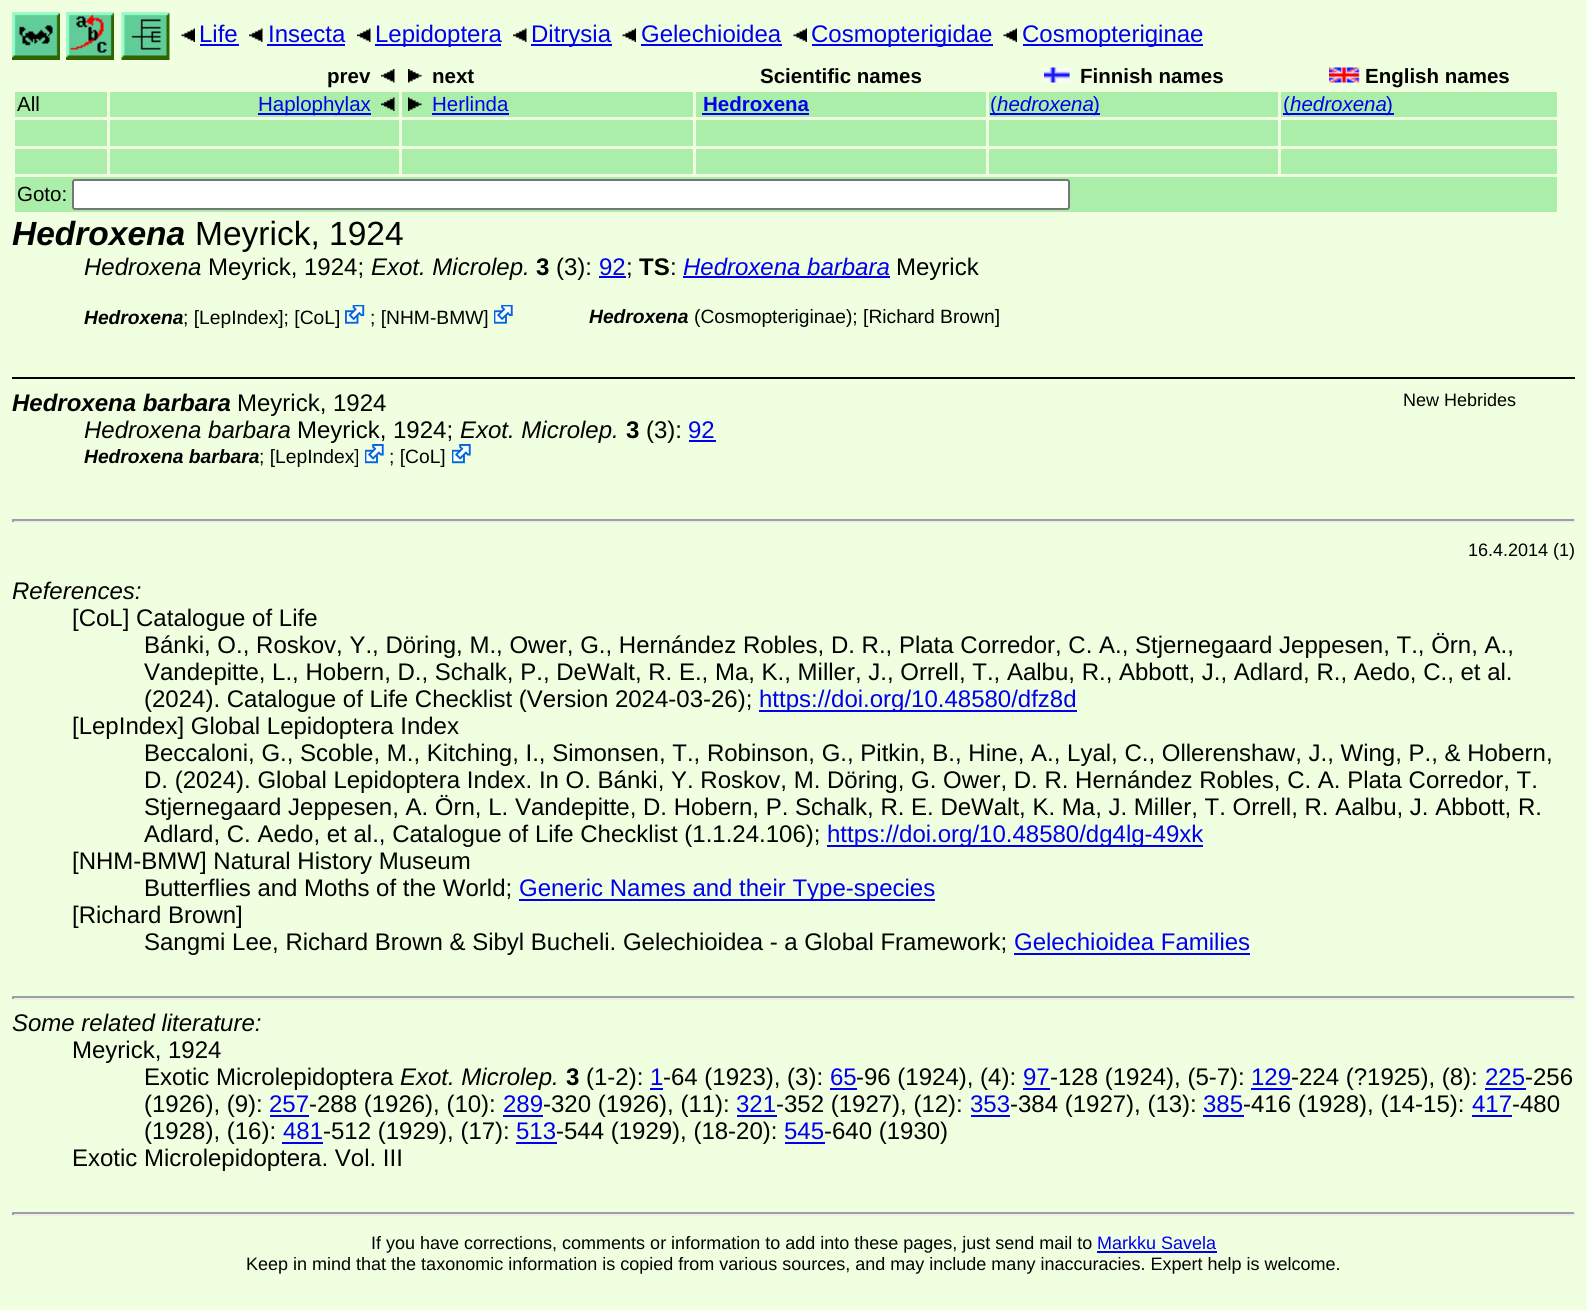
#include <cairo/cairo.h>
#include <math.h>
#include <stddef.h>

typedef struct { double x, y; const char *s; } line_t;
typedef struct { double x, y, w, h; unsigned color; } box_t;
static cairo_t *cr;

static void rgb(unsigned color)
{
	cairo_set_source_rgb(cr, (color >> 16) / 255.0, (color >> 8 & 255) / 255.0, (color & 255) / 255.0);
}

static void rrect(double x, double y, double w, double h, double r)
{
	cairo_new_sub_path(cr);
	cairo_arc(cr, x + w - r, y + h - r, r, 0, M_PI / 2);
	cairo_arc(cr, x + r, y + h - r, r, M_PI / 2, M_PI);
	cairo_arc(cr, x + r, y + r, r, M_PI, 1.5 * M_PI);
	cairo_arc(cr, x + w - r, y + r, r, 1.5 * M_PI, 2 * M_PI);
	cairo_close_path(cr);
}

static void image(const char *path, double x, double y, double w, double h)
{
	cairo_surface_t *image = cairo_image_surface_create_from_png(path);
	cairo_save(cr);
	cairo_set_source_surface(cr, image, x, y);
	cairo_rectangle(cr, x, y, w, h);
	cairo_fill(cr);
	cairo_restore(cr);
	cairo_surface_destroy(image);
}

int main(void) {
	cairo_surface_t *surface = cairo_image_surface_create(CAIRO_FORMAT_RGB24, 1587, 1310);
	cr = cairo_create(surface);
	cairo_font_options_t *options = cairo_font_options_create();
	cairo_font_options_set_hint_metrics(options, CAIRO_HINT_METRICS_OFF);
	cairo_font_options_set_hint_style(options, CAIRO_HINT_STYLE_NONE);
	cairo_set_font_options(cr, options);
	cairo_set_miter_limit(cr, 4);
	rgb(0xf0ffe0);
	cairo_paint(cr);
	image("img/1.png", 12, 12, 48, 48);
	image("img/2.png", 66, 12, 48, 48);
	image("img/3.png", 121, 12, 49, 48);
	image("img/4.png", 181, 28, 14, 14);
	rgb(0x0000ee);
	cairo_rectangle(cr, 200, 44, 39, 2);
	cairo_fill(cr);
	image("img/5.png", 249, 28, 14, 14);
	cairo_rectangle(cr, 267, 44, 78, 2);
	cairo_fill(cr);
	image("img/5.png", 357, 28, 14, 14);
	cairo_rectangle(cr, 375, 44, 126, 2);
	cairo_fill(cr);
	image("img/5.png", 513, 28, 14, 14);
	cairo_rectangle(cr, 531, 44, 81, 2);
	cairo_fill(cr);
	image("img/6.png", 622, 28, 14, 14);
	cairo_rectangle(cr, 641, 44, 141, 2);
	cairo_fill(cr);
	image("img/4.png", 793, 28, 14, 14);
	cairo_rectangle(cr, 812, 44, 181, 2);
	cairo_fill(cr);
	image("img/4.png", 1003, 28, 14, 14);
	cairo_rectangle(cr, 1023, 44, 180, 2);
	cairo_fill(cr);
	image("img/7.png", 381, 69, 14, 14);
	image("img/8.png", 408, 69, 14, 14);
	image("img/9.png", 1044, 67, 26, 16);
	image("img/10.png", 1329, 67, 31, 16);
	{
		static const box_t items[] = {
			{15, 92, 92, 25, 0xaaeeaa},
			{110, 92, 289, 25, 0xaaeeaa},
			{258, 113, 113, 2, 0x0000ee},
		};
		for (size_t i = 0; i < sizeof items / sizeof *items; i++) {
			rgb(items[i].color);
			cairo_rectangle(cr, items[i].x, items[i].y, items[i].w, items[i].h);
			cairo_fill(cr);
		}
	}
	image("img/11.png", 381, 97, 14, 14);
	rgb(0xaaeeaa);
	cairo_rectangle(cr, 402, 92, 291, 25);
	cairo_fill(cr);
	image("img/12.png", 408, 97, 14, 14);
	{
		static const box_t items[] = {
			{432, 113, 77, 2, 0x0000ee},
			{696, 92, 290, 25, 0xaaeeaa},
			{702, 113, 107, 2, 0x0000ee},
			{989, 92, 289, 25, 0xaaeeaa},
			{990, 113, 110, 2, 0x0000ee},
			{1281, 92, 276, 25, 0xaaeeaa},
			{1283, 113, 111, 2, 0x0000ee},
			{15, 120, 92, 26, 0xaaeeaa},
			{110, 120, 289, 26, 0xaaeeaa},
			{402, 120, 291, 26, 0xaaeeaa},
			{696, 120, 290, 26, 0xaaeeaa},
			{989, 120, 289, 26, 0xaaeeaa},
			{1281, 120, 276, 26, 0xaaeeaa},
			{15, 149, 92, 25, 0xaaeeaa},
			{110, 149, 289, 25, 0xaaeeaa},
			{402, 149, 291, 25, 0xaaeeaa},
			{696, 149, 290, 25, 0xaaeeaa},
			{989, 149, 289, 25, 0xaaeeaa},
			{1281, 149, 276, 25, 0xaaeeaa},
			{15, 177, 1542, 35, 0xaaeeaa},
		};
		for (size_t i = 0; i < sizeof items / sizeof *items; i++) {
			rgb(items[i].color);
			cairo_rectangle(cr, items[i].x, items[i].y, items[i].w, items[i].h);
			cairo_fill(cr);
		}
	}
	rgb(0xffffff);
	rrect(73, 180, 996, 29, 2);
	cairo_fill_preserve(cr);
	rgb(0x767676);
	cairo_stroke(cr);
	rgb(0x0000ee);
	cairo_rectangle(cr, 599, 276, 27, 2);
	cairo_fill(cr);
	cairo_rectangle(cr, 683, 276, 207, 2);
	cairo_fill(cr);
	image("img/13.png", 345, 305, 20, 19);
	image("img/14.png", 494, 305, 19, 19);
	rgb(0x000000);
	cairo_rectangle(cr, 12, 377, 1563, 2);
	cairo_fill(cr);
	rgb(0x0000ee);
	cairo_rectangle(cr, 689, 440, 27, 2);
	cairo_fill(cr);
	image("img/15.png", 365, 444, 19, 20);
	image("img/15.png", 452, 444, 19, 20);
	{
		static const box_t items[] = {
			{12, 519, 1563, 2, 0x9f9f9f},
			{1574, 519, 2, 3, 0xeeeeee},
			{12, 521, 1563, 2, 0xeeeeee},
			{12, 519, 2, 3, 0x9f9f9f},
			{759, 710, 318, 2, 0x0000ee},
			{827, 845, 376, 2, 0x0000ee},
			{519, 899, 416, 2, 0x0000ee},
			{1014, 953, 236, 2, 0x0000ee},
			{12, 996, 1563, 2, 0x9f9f9f},
			{1574, 996, 2, 3, 0xeeeeee},
			{12, 998, 1563, 2, 0xeeeeee},
			{12, 996, 2, 3, 0x9f9f9f},
			{650, 1088, 13, 2, 0x0000ee},
			{830, 1088, 27, 2, 0x0000ee},
			{1023, 1088, 27, 2, 0x0000ee},
			{1251, 1088, 41, 2, 0x0000ee},
			{1485, 1088, 41, 2, 0x0000ee},
			{270, 1115, 39, 2, 0x0000ee},
			{503, 1115, 40, 2, 0x0000ee},
			{737, 1115, 40, 2, 0x0000ee},
			{971, 1115, 39, 2, 0x0000ee},
			{1203, 1115, 41, 2, 0x0000ee},
			{1472, 1115, 40, 2, 0x0000ee},
			{282, 1142, 41, 2, 0x0000ee},
			{516, 1142, 41, 2, 0x0000ee},
			{785, 1142, 40, 2, 0x0000ee},
			{12, 1212, 1563, 2, 0x9f9f9f},
			{1574, 1212, 2, 3, 0xeeeeee},
			{12, 1214, 1563, 2, 0xeeeeee},
			{12, 1212, 2, 3, 0x9f9f9f},
			{1097, 1251, 120, 2, 0x0000ee},
		};
		for (size_t i = 0; i < sizeof items / sizeof *items; i++) {
			rgb(items[i].color);
			cairo_rectangle(cr, items[i].x, items[i].y, items[i].w, items[i].h);
			cairo_fill(cr);
		}
	}
	cairo_select_font_face(cr, "Liberation Sans", CAIRO_FONT_SLANT_NORMAL, CAIRO_FONT_WEIGHT_NORMAL);
	cairo_set_font_size(cr, 24);
	{
		static const line_t items[] = {
			{199, 42, "Life"},
			{268, 42, "Insecta"},
			{375, 42, "Lepidoptera"},
			{531, 42, "Ditrysia"},
			{641, 42, "Gelechioidea"},
			{811, 42, "Cosmopterigidae"},
			{1022, 42, "Cosmopteriginae"},
		};
		for (size_t i = 0; i < sizeof items / sizeof *items; i++) {
			cairo_move_to(cr, items[i].x, items[i].y);
			cairo_show_text(cr, items[i].s);
		}
	}
	cairo_select_font_face(cr, "Liberation Sans", CAIRO_FONT_SLANT_NORMAL, CAIRO_FONT_WEIGHT_BOLD);
	cairo_set_font_size(cr, 20.5);
	rgb(0x000000);
	{
		static const line_t items[] = {
			{327, 83, "prev"},
			{432, 83, "next"},
			{760, 83, "Scientific names"},
			{1080, 83, "Finnish names"},
			{1365, 83, "English names"},
		};
		for (size_t i = 0; i < sizeof items / sizeof *items; i++) {
			cairo_move_to(cr, items[i].x, items[i].y);
			cairo_show_text(cr, items[i].s);
		}
	}
	cairo_select_font_face(cr, "Liberation Sans", CAIRO_FONT_SLANT_NORMAL, CAIRO_FONT_WEIGHT_NORMAL);
	cairo_move_to(cr, 17, 111);
	cairo_show_text(cr, "All");
	rgb(0x0000ee);
	cairo_move_to(cr, 258, 111);
	cairo_show_text(cr, "Haplophylax");
	cairo_move_to(cr, 432, 111);
	cairo_show_text(cr, "Herlinda");
	cairo_select_font_face(cr, "Liberation Sans", CAIRO_FONT_SLANT_NORMAL, CAIRO_FONT_WEIGHT_BOLD);
	cairo_move_to(cr, 703, 111);
	cairo_show_text(cr, "Hedroxena");
	cairo_select_font_face(cr, "Liberation Sans", CAIRO_FONT_SLANT_NORMAL, CAIRO_FONT_WEIGHT_NORMAL);
	cairo_move_to(cr, 990, 111);
	cairo_show_text(cr, "(");
	cairo_select_font_face(cr, "Liberation Sans", CAIRO_FONT_SLANT_ITALIC, CAIRO_FONT_WEIGHT_NORMAL);
	cairo_move_to(cr, 997, 111);
	cairo_show_text(cr, "hedroxena");
	cairo_select_font_face(cr, "Liberation Sans", CAIRO_FONT_SLANT_NORMAL, CAIRO_FONT_WEIGHT_NORMAL);
	cairo_move_to(cr, 1093, 111);
	cairo_show_text(cr, ")");
	cairo_move_to(cr, 1283, 111);
	cairo_show_text(cr, "(");
	cairo_select_font_face(cr, "Liberation Sans", CAIRO_FONT_SLANT_ITALIC, CAIRO_FONT_WEIGHT_NORMAL);
	cairo_move_to(cr, 1290, 111);
	cairo_show_text(cr, "hedroxena");
	cairo_select_font_face(cr, "Liberation Sans", CAIRO_FONT_SLANT_NORMAL, CAIRO_FONT_WEIGHT_NORMAL);
	cairo_move_to(cr, 1386, 111);
	cairo_show_text(cr, ")");
	rgb(0x000000);
	cairo_move_to(cr, 17, 201);
	cairo_show_text(cr, "Goto:");
	cairo_select_font_face(cr, "Liberation Sans", CAIRO_FONT_SLANT_ITALIC, CAIRO_FONT_WEIGHT_BOLD);
	cairo_set_font_size(cr, 33.5);
	cairo_move_to(cr, 12, 245);
	cairo_show_text(cr, "Hedroxena");
	cairo_select_font_face(cr, "Liberation Sans", CAIRO_FONT_SLANT_NORMAL, CAIRO_FONT_WEIGHT_NORMAL);
	cairo_move_to(cr, 195, 245);
	cairo_show_text(cr, "Meyrick, 1924");
	cairo_select_font_face(cr, "Liberation Sans", CAIRO_FONT_SLANT_ITALIC, CAIRO_FONT_WEIGHT_NORMAL);
	cairo_set_font_size(cr, 24);
	cairo_move_to(cr, 84, 275);
	cairo_show_text(cr, "Hedroxena");
	cairo_select_font_face(cr, "Liberation Sans", CAIRO_FONT_SLANT_NORMAL, CAIRO_FONT_WEIGHT_NORMAL);
	cairo_move_to(cr, 208, 275);
	cairo_show_text(cr, "Meyrick, 1924;");
	cairo_select_font_face(cr, "Liberation Sans", CAIRO_FONT_SLANT_ITALIC, CAIRO_FONT_WEIGHT_NORMAL);
	cairo_move_to(cr, 371, 275);
	cairo_show_text(cr, "Exot. Microlep.");
	cairo_select_font_face(cr, "Liberation Sans", CAIRO_FONT_SLANT_NORMAL, CAIRO_FONT_WEIGHT_BOLD);
	cairo_move_to(cr, 536, 275);
	cairo_show_text(cr, "3");
	cairo_select_font_face(cr, "Liberation Sans", CAIRO_FONT_SLANT_NORMAL, CAIRO_FONT_WEIGHT_NORMAL);
	cairo_move_to(cr, 556, 275);
	cairo_show_text(cr, "(3):");
	rgb(0x0000ee);
	cairo_move_to(cr, 599, 275);
	cairo_show_text(cr, "92");
	rgb(0x000000);
	cairo_move_to(cr, 626, 275);
	cairo_show_text(cr, ";");
	cairo_select_font_face(cr, "Liberation Sans", CAIRO_FONT_SLANT_NORMAL, CAIRO_FONT_WEIGHT_BOLD);
	cairo_move_to(cr, 639, 275);
	cairo_show_text(cr, "TS");
	cairo_select_font_face(cr, "Liberation Sans", CAIRO_FONT_SLANT_NORMAL, CAIRO_FONT_WEIGHT_NORMAL);
	cairo_move_to(cr, 670, 275);
	cairo_show_text(cr, ":");
	cairo_select_font_face(cr, "Liberation Sans", CAIRO_FONT_SLANT_ITALIC, CAIRO_FONT_WEIGHT_NORMAL);
	rgb(0x0000ee);
	cairo_move_to(cr, 683, 275);
	cairo_show_text(cr, "Hedroxena barbara");
	cairo_select_font_face(cr, "Liberation Sans", CAIRO_FONT_SLANT_NORMAL, CAIRO_FONT_WEIGHT_NORMAL);
	rgb(0x000000);
	cairo_move_to(cr, 896, 275);
	cairo_show_text(cr, "Meyrick");
	cairo_select_font_face(cr, "Liberation Sans", CAIRO_FONT_SLANT_ITALIC, CAIRO_FONT_WEIGHT_BOLD);
	cairo_set_font_size(cr, 19.25);
	cairo_move_to(cr, 84, 324);
	cairo_show_text(cr, "Hedroxena");
	cairo_select_font_face(cr, "Liberation Sans", CAIRO_FONT_SLANT_NORMAL, CAIRO_FONT_WEIGHT_NORMAL);
	cairo_move_to(cr, 183, 324);
	cairo_show_text(cr, "; [LepIndex]; [CoL]");
	cairo_move_to(cr, 370, 324);
	cairo_show_text(cr, "; [NHM-BMW]");
	cairo_select_font_face(cr, "Liberation Sans", CAIRO_FONT_SLANT_ITALIC, CAIRO_FONT_WEIGHT_BOLD);
	cairo_move_to(cr, 589, 323);
	cairo_show_text(cr, "Hedroxena");
	cairo_select_font_face(cr, "Liberation Sans", CAIRO_FONT_SLANT_NORMAL, CAIRO_FONT_WEIGHT_NORMAL);
	cairo_move_to(cr, 694, 323);
	cairo_show_text(cr, "(Cosmopteriginae); [Richard Brown]");
	cairo_select_font_face(cr, "Liberation Sans", CAIRO_FONT_SLANT_ITALIC, CAIRO_FONT_WEIGHT_BOLD);
	cairo_set_font_size(cr, 24);
	cairo_move_to(cr, 12, 411);
	cairo_show_text(cr, "Hedroxena barbara");
	cairo_select_font_face(cr, "Liberation Sans", CAIRO_FONT_SLANT_NORMAL, CAIRO_FONT_WEIGHT_NORMAL);
	cairo_move_to(cr, 237, 411);
	cairo_show_text(cr, "Meyrick, 1924");
	cairo_set_font_size(cr, 18);
	cairo_move_to(cr, 1403, 406);
	cairo_show_text(cr, "New Hebrides");
	cairo_select_font_face(cr, "Liberation Sans", CAIRO_FONT_SLANT_ITALIC, CAIRO_FONT_WEIGHT_NORMAL);
	cairo_set_font_size(cr, 24);
	cairo_move_to(cr, 84, 438);
	cairo_show_text(cr, "Hedroxena barbara");
	cairo_select_font_face(cr, "Liberation Sans", CAIRO_FONT_SLANT_NORMAL, CAIRO_FONT_WEIGHT_NORMAL);
	cairo_move_to(cr, 297, 438);
	cairo_show_text(cr, "Meyrick, 1924;");
	cairo_select_font_face(cr, "Liberation Sans", CAIRO_FONT_SLANT_ITALIC, CAIRO_FONT_WEIGHT_NORMAL);
	cairo_move_to(cr, 460, 438);
	cairo_show_text(cr, "Exot. Microlep.");
	cairo_select_font_face(cr, "Liberation Sans", CAIRO_FONT_SLANT_NORMAL, CAIRO_FONT_WEIGHT_BOLD);
	cairo_move_to(cr, 626, 438);
	cairo_show_text(cr, "3");
	cairo_select_font_face(cr, "Liberation Sans", CAIRO_FONT_SLANT_NORMAL, CAIRO_FONT_WEIGHT_NORMAL);
	cairo_move_to(cr, 646, 438);
	cairo_show_text(cr, "(3):");
	rgb(0x0000ee);
	cairo_move_to(cr, 688, 438);
	cairo_show_text(cr, "92");
	cairo_select_font_face(cr, "Liberation Sans", CAIRO_FONT_SLANT_ITALIC, CAIRO_FONT_WEIGHT_BOLD);
	cairo_set_font_size(cr, 19.25);
	rgb(0x000000);
	cairo_move_to(cr, 84, 463);
	cairo_show_text(cr, "Hedroxena barbara");
	cairo_select_font_face(cr, "Liberation Sans", CAIRO_FONT_SLANT_NORMAL, CAIRO_FONT_WEIGHT_NORMAL);
	cairo_move_to(cr, 259, 463);
	cairo_show_text(cr, "; [LepIndex]");
	cairo_move_to(cr, 389, 463);
	cairo_show_text(cr, "; [CoL]");
	cairo_set_font_size(cr, 18);
	cairo_move_to(cr, 1468, 556);
	cairo_show_text(cr, "16.4.2014 (1)");
	cairo_select_font_face(cr, "Liberation Sans", CAIRO_FONT_SLANT_ITALIC, CAIRO_FONT_WEIGHT_NORMAL);
	cairo_set_font_size(cr, 24);
	cairo_move_to(cr, 12, 599);
	cairo_show_text(cr, "References:");
	cairo_select_font_face(cr, "Liberation Sans", CAIRO_FONT_SLANT_NORMAL, CAIRO_FONT_WEIGHT_NORMAL);
	{
		static const line_t items[] = {
			{72, 626, "[CoL] Catalogue of Life"},
			{144, 653, "Bánki, O., Roskov, Y., Döring, M., Ower, G., Hernández Robles, D. R., Plata Corredor, C. A., Stjernegaard Jeppesen, T., Örn, A.,"},
			{144, 680, "Vandepitte, L., Hobern, D., Schalk, P., DeWalt, R. E., Ma, K., Miller, J., Orrell, T., Aalbu, R., Abbott, J., Adlard, R., Aedo, C., et al."},
			{144, 707, "(2024). Catalogue of Life Checklist (Version 2024-03-26);"},
		};
		for (size_t i = 0; i < sizeof items / sizeof *items; i++) {
			cairo_move_to(cr, items[i].x, items[i].y);
			cairo_show_text(cr, items[i].s);
		}
	}
	rgb(0x0000ee);
	cairo_move_to(cr, 759, 707);
	cairo_show_text(cr, "https://doi.org/10.48580/dfz8d");
	rgb(0x000000);
	{
		static const line_t items[] = {
			{72, 734, "[LepIndex] Global Lepidoptera Index"},
			{144, 761, "Beccaloni, G., Scoble, M., Kitching, I., Simonsen, T., Robinson, G., Pitkin, B., Hine, A., Lyal, C., Ollerenshaw, J., Wing, P., & Hobern,"},
			{144, 788, "D. (2024). Global Lepidoptera Index. In O. Bánki, Y. Roskov, M. Döring, G. Ower, D. R. Hernández Robles, C. A. Plata Corredor, T."},
			{144, 815, "Stjernegaard Jeppesen, A. Örn, L. Vandepitte, D. Hobern, P. Schalk, R. E. DeWalt, K. Ma, J. Miller, T. Orrell, R. Aalbu, J. Abbott, R."},
			{144, 842, "Adlard, C. Aedo, et al., Catalogue of Life Checklist (1.1.24.106);"},
		};
		for (size_t i = 0; i < sizeof items / sizeof *items; i++) {
			cairo_move_to(cr, items[i].x, items[i].y);
			cairo_show_text(cr, items[i].s);
		}
	}
	rgb(0x0000ee);
	cairo_move_to(cr, 827, 842);
	cairo_show_text(cr, "https://doi.org/10.48580/dg4lg-49xk");
	rgb(0x000000);
	cairo_move_to(cr, 72, 869);
	cairo_show_text(cr, "[NHM-BMW] Natural History Museum");
	cairo_move_to(cr, 144, 896);
	cairo_show_text(cr, "Butterflies and Moths of the World;");
	rgb(0x0000ee);
	cairo_move_to(cr, 519, 896);
	cairo_show_text(cr, "Generic Names and their Type-species");
	rgb(0x000000);
	cairo_move_to(cr, 72, 923);
	cairo_show_text(cr, "[Richard Brown]");
	cairo_move_to(cr, 144, 950);
	cairo_show_text(cr, "Sangmi Lee, Richard Brown & Sibyl Bucheli. Gelechioidea - a Global Framework;");
	rgb(0x0000ee);
	cairo_move_to(cr, 1014, 950);
	cairo_show_text(cr, "Gelechioidea Families");
	cairo_select_font_face(cr, "Liberation Sans", CAIRO_FONT_SLANT_ITALIC, CAIRO_FONT_WEIGHT_NORMAL);
	rgb(0x000000);
	cairo_move_to(cr, 12, 1031);
	cairo_show_text(cr, "Some related literature:");
	cairo_select_font_face(cr, "Liberation Sans", CAIRO_FONT_SLANT_NORMAL, CAIRO_FONT_WEIGHT_NORMAL);
	cairo_move_to(cr, 72, 1058);
	cairo_show_text(cr, "Meyrick, 1924");
	cairo_move_to(cr, 144, 1085);
	cairo_show_text(cr, "Exotic Microlepidoptera");
	cairo_select_font_face(cr, "Liberation Sans", CAIRO_FONT_SLANT_ITALIC, CAIRO_FONT_WEIGHT_NORMAL);
	cairo_move_to(cr, 400, 1085);
	cairo_show_text(cr, "Exot. Microlep.");
	cairo_select_font_face(cr, "Liberation Sans", CAIRO_FONT_SLANT_NORMAL, CAIRO_FONT_WEIGHT_BOLD);
	cairo_move_to(cr, 566, 1085);
	cairo_show_text(cr, "3");
	cairo_select_font_face(cr, "Liberation Sans", CAIRO_FONT_SLANT_NORMAL, CAIRO_FONT_WEIGHT_NORMAL);
	cairo_move_to(cr, 586, 1085);
	cairo_show_text(cr, "(1-2):");
	rgb(0x0000ee);
	cairo_move_to(cr, 650, 1085);
	cairo_show_text(cr, "1");
	rgb(0x000000);
	cairo_move_to(cr, 663, 1085);
	cairo_show_text(cr, "-64 (1923), (3):");
	rgb(0x0000ee);
	cairo_move_to(cr, 830, 1085);
	cairo_show_text(cr, "65");
	rgb(0x000000);
	cairo_move_to(cr, 856, 1085);
	cairo_show_text(cr, "-96 (1924), (4):");
	rgb(0x0000ee);
	cairo_move_to(cr, 1023, 1085);
	cairo_show_text(cr, "97");
	rgb(0x000000);
	cairo_move_to(cr, 1050, 1085);
	cairo_show_text(cr, "-128 (1924), (5-7):");
	rgb(0x0000ee);
	cairo_move_to(cr, 1251, 1085);
	cairo_show_text(cr, "129");
	rgb(0x000000);
	cairo_move_to(cr, 1291, 1085);
	cairo_show_text(cr, "-224 (?1925), (8):");
	rgb(0x0000ee);
	cairo_move_to(cr, 1485, 1085);
	cairo_show_text(cr, "225");
	rgb(0x000000);
	cairo_move_to(cr, 1525, 1085);
	cairo_show_text(cr, "-256");
	cairo_move_to(cr, 144, 1112);
	cairo_show_text(cr, "(1926), (9):");
	rgb(0x0000ee);
	cairo_move_to(cr, 269, 1112);
	cairo_show_text(cr, "257");
	rgb(0x000000);
	cairo_move_to(cr, 309, 1112);
	cairo_show_text(cr, "-288 (1926), (10):");
	rgb(0x0000ee);
	cairo_move_to(cr, 503, 1112);
	cairo_show_text(cr, "289");
	rgb(0x000000);
	cairo_move_to(cr, 543, 1112);
	cairo_show_text(cr, "-320 (1926), (11):");
	rgb(0x0000ee);
	cairo_move_to(cr, 736, 1112);
	cairo_show_text(cr, "321");
	rgb(0x000000);
	cairo_move_to(cr, 776, 1112);
	cairo_show_text(cr, "-352 (1927), (12):");
	rgb(0x0000ee);
	cairo_move_to(cr, 970, 1112);
	cairo_show_text(cr, "353");
	rgb(0x000000);
	cairo_move_to(cr, 1010, 1112);
	cairo_show_text(cr, "-384 (1927), (13):");
	rgb(0x0000ee);
	cairo_move_to(cr, 1203, 1112);
	cairo_show_text(cr, "385");
	rgb(0x000000);
	cairo_move_to(cr, 1243, 1112);
	cairo_show_text(cr, "-416 (1928), (14-15):");
	rgb(0x0000ee);
	cairo_move_to(cr, 1472, 1112);
	cairo_show_text(cr, "417");
	rgb(0x000000);
	cairo_move_to(cr, 1512, 1112);
	cairo_show_text(cr, "-480");
	cairo_move_to(cr, 144, 1139);
	cairo_show_text(cr, "(1928), (16):");
	rgb(0x0000ee);
	cairo_move_to(cr, 283, 1139);
	cairo_show_text(cr, "481");
	rgb(0x000000);
	cairo_move_to(cr, 323, 1139);
	cairo_show_text(cr, "-512 (1929), (17):");
	rgb(0x0000ee);
	cairo_move_to(cr, 516, 1139);
	cairo_show_text(cr, "513");
	rgb(0x000000);
	cairo_move_to(cr, 556, 1139);
	cairo_show_text(cr, "-544 (1929), (18-20):");
	rgb(0x0000ee);
	cairo_move_to(cr, 784, 1139);
	cairo_show_text(cr, "545");
	rgb(0x000000);
	cairo_move_to(cr, 824, 1139);
	cairo_show_text(cr, "-640 (1930)");
	cairo_move_to(cr, 72, 1166);
	cairo_show_text(cr, "Exotic Microlepidoptera. Vol. III");
	cairo_set_font_size(cr, 18);
	cairo_move_to(cr, 371, 1249);
	cairo_show_text(cr, "If you have corrections, comments or information to add into these pages, just send mail to");
	rgb(0x0000ee);
	cairo_move_to(cr, 1097, 1249);
	cairo_show_text(cr, "Markku Savela");
	rgb(0x000000);
	cairo_move_to(cr, 246, 1270);
	cairo_show_text(cr, "Keep in mind that the taxonomic information is copied from various sources, and may include many inaccuracies. Expert help is welcome.");
	cairo_surface_write_to_png(surface, "page.png");
	cairo_font_options_destroy(options);
	cairo_destroy(cr);
	cairo_surface_destroy(surface);
	return 0;
}
